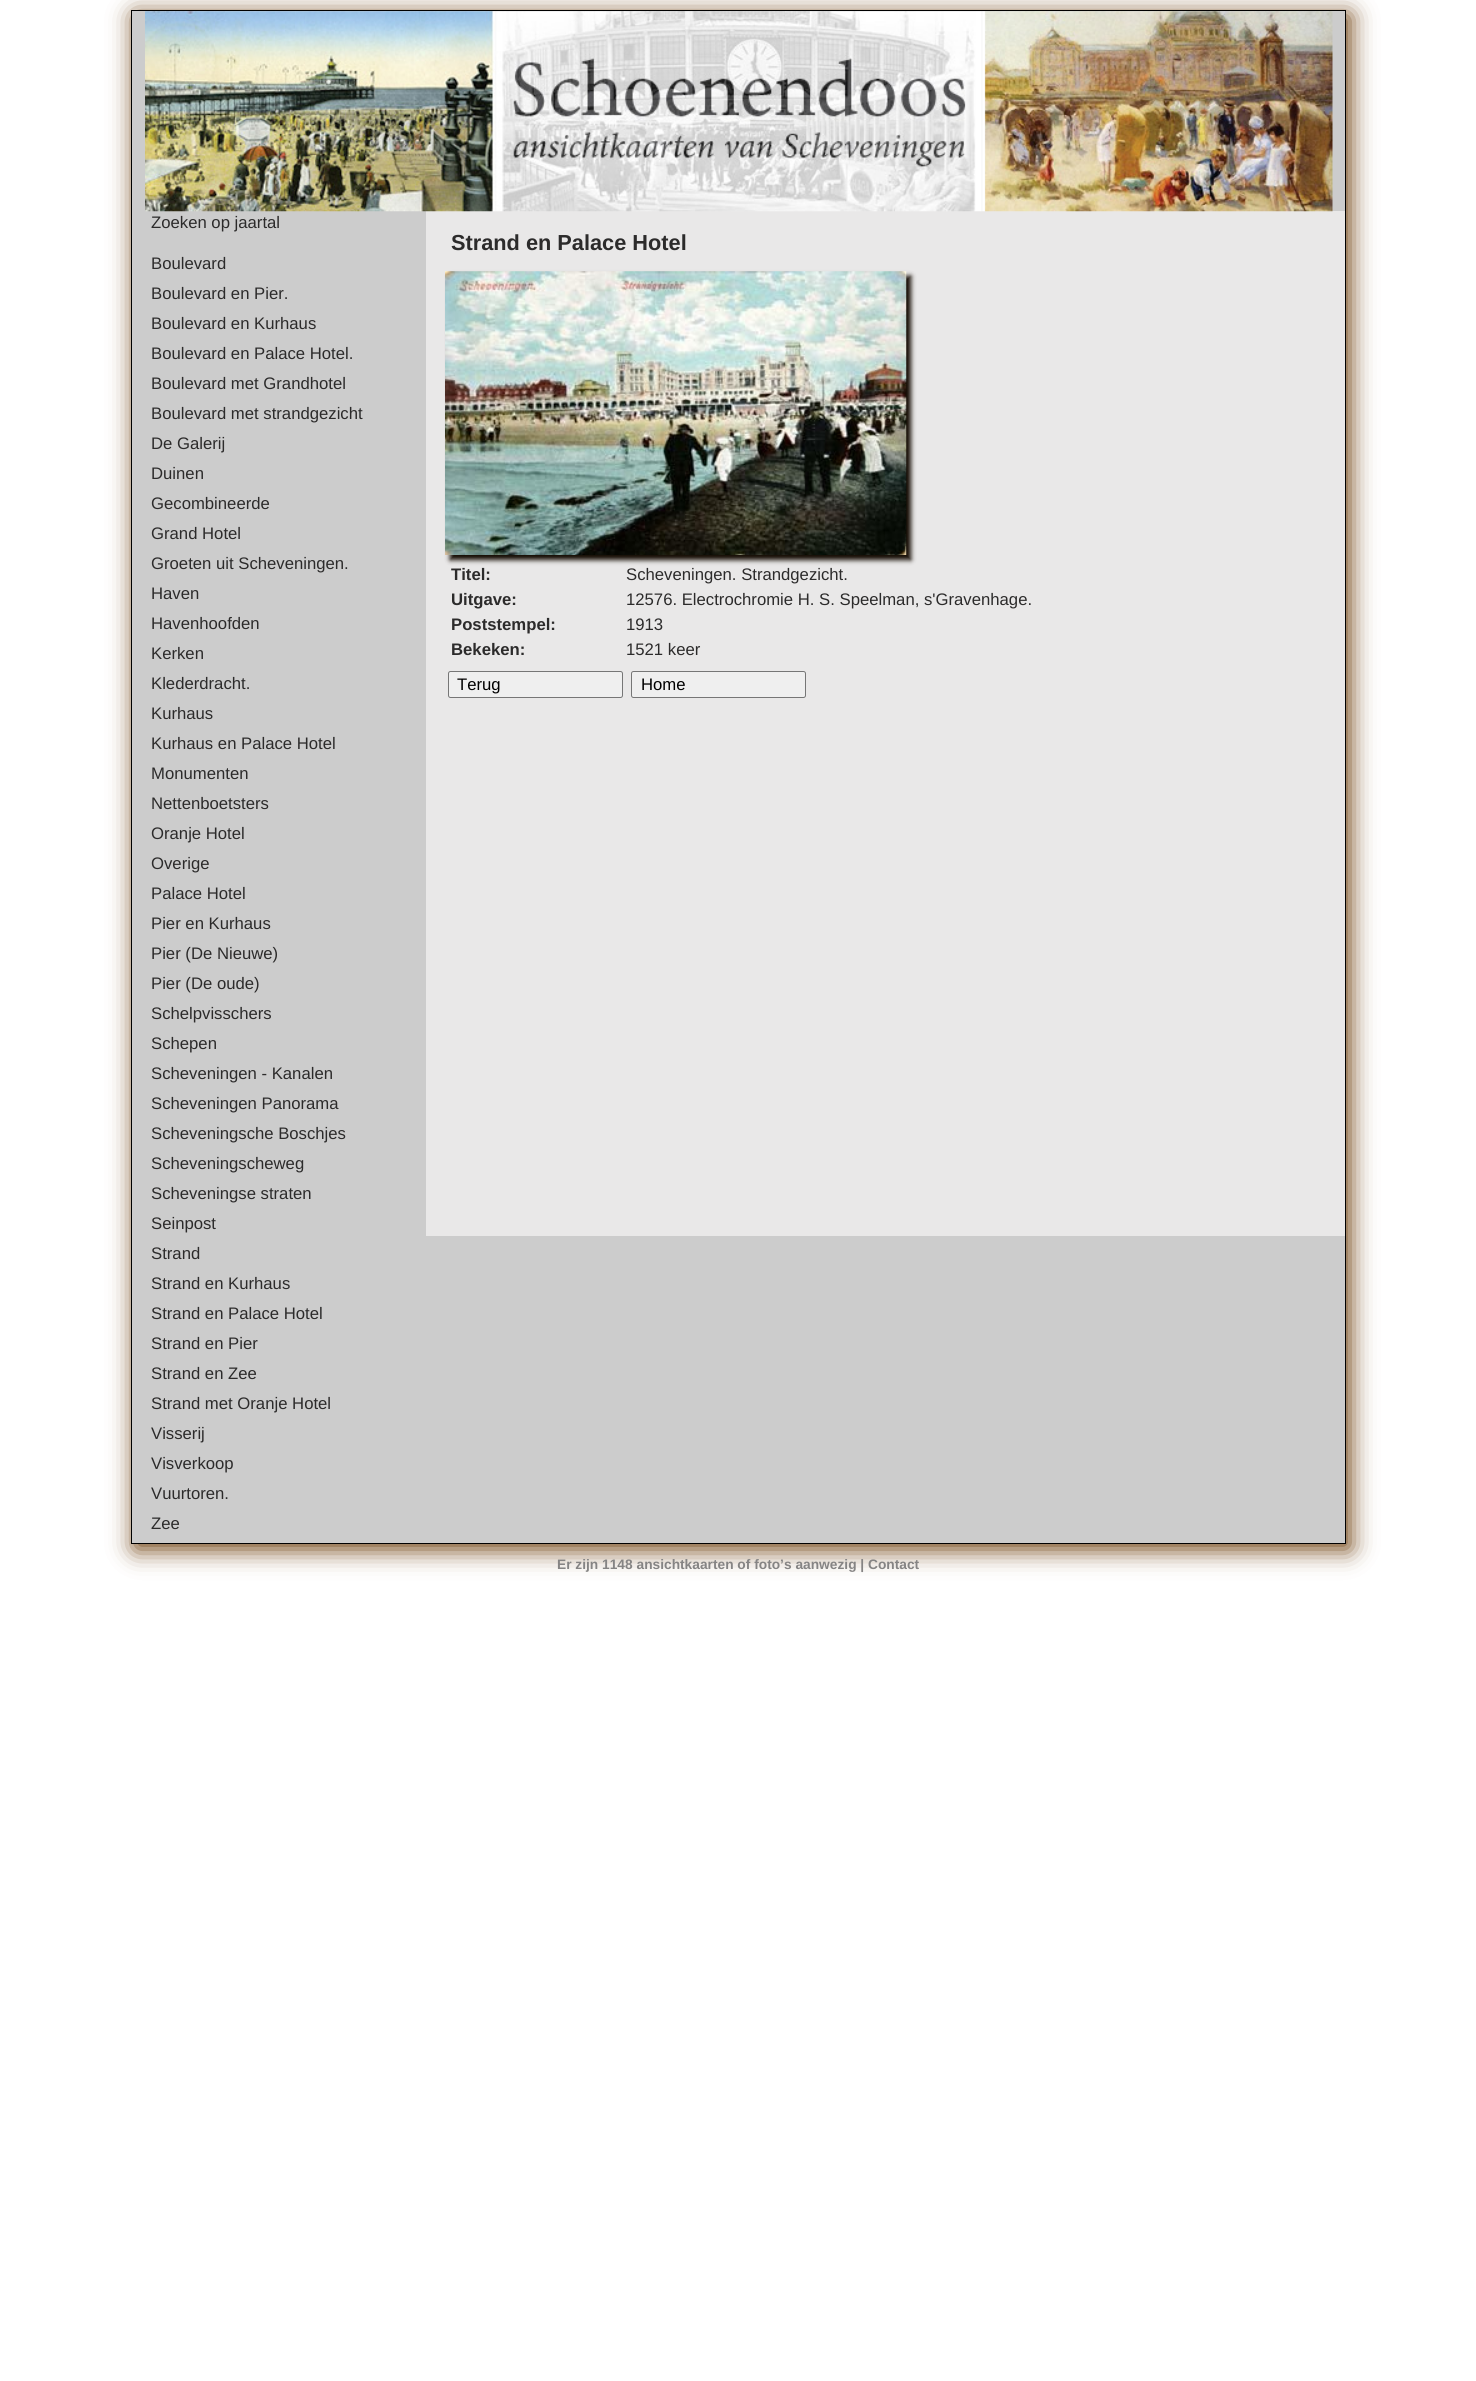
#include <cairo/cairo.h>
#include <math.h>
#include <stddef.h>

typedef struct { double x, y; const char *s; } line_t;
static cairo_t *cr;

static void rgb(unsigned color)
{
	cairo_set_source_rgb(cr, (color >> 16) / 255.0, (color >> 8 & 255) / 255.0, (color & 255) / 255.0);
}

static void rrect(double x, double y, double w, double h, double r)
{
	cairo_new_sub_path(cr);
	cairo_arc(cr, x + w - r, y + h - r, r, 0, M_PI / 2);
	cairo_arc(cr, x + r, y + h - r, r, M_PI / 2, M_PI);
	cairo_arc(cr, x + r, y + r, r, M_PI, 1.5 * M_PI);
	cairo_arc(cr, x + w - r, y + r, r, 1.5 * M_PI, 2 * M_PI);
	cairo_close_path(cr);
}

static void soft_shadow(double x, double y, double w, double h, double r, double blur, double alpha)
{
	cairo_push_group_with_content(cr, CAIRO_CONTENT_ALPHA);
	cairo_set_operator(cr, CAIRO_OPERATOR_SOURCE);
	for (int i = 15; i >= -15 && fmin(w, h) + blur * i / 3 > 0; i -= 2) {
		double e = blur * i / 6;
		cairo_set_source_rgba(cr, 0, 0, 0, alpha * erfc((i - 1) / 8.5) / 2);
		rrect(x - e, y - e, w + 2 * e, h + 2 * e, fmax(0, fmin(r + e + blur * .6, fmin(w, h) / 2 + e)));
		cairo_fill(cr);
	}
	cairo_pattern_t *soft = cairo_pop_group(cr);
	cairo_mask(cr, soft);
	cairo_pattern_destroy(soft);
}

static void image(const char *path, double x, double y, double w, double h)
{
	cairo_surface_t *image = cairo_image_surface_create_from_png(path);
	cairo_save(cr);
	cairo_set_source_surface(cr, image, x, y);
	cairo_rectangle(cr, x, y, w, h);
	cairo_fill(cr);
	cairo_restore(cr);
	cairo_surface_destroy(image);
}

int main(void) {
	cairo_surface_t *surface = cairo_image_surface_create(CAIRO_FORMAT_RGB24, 1476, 2381);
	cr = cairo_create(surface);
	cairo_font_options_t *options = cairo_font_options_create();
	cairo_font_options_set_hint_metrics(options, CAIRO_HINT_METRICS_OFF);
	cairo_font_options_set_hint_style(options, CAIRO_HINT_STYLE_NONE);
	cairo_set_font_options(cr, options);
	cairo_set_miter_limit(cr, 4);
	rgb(0xffffff);
	cairo_paint(cr);
	rgb(0x693906);
	soft_shadow(135, 15, 1215, 1534, 0, 12.5, 1);
	rgb(0xcccccc);
	cairo_rectangle(cr, 131.5, 10.5, 1214, 1533);
	cairo_fill_preserve(cr);
	rgb(0x000000);
	cairo_set_line_width(cr, 1);
	cairo_stroke(cr);
	rgb(0xe9e8e8);
	cairo_rectangle(cr, 426, 211, 919, 1025);
	cairo_fill(cr);
	image("img/1.png", 145, 11, 1188, 201);
	rgb(0x130a01);
	soft_shadow(450, 276, 461, 284, 0, 2.5, 1);
	image("img/2.png", 445, 271, 462, 284);
	rgb(0xefefef);
	rrect(448.5, 671.5, 174, 26, 2);
	cairo_fill_preserve(cr);
	rgb(0x767676);
	cairo_stroke(cr);
	rgb(0xefefef);
	rrect(631.5, 671.5, 174, 26, 2);
	cairo_fill_preserve(cr);
	rgb(0x767676);
	cairo_stroke(cr);
	cairo_select_font_face(cr, "Liberation Sans", CAIRO_FONT_SLANT_NORMAL, CAIRO_FONT_WEIGHT_NORMAL);
	cairo_set_font_size(cr, 16.7);
	rgb(0x2c2b2b);
	{
		static const line_t items[] = {
			{151, 228, "Zoeken op jaartal"},
			{151, 269, "Boulevard"},
			{151, 299, "Boulevard en Pier."},
			{151, 329, "Boulevard en Kurhaus"},
			{151, 359, "Boulevard en Palace Hotel."},
			{151, 389, "Boulevard met Grandhotel"},
			{151, 419, "Boulevard met strandgezicht"},
			{151, 449, "De Galerij"},
			{151, 479, "Duinen"},
			{151, 509, "Gecombineerde"},
			{151, 539, "Grand Hotel"},
			{151, 569, "Groeten uit Scheveningen."},
			{151, 599, "Haven"},
			{151, 629, "Havenhoofden"},
			{151, 659, "Kerken"},
			{151, 689, "Klederdracht."},
			{151, 719, "Kurhaus"},
			{151, 749, "Kurhaus en Palace Hotel"},
			{151, 779, "Monumenten"},
			{151, 809, "Nettenboetsters"},
			{151, 839, "Oranje Hotel"},
			{151, 869, "Overige"},
			{151, 899, "Palace Hotel"},
			{151, 929, "Pier en Kurhaus"},
			{151, 959, "Pier (De Nieuwe)"},
			{151, 989, "Pier (De oude)"},
			{151, 1019, "Schelpvisschers"},
			{151, 1049, "Schepen"},
			{151, 1079, "Scheveningen - Kanalen"},
			{151, 1109, "Scheveningen Panorama"},
			{151, 1139, "Scheveningsche Boschjes"},
			{151, 1169, "Scheveningscheweg"},
			{151, 1199, "Scheveningse straten"},
			{151, 1229, "Seinpost"},
			{151, 1259, "Strand"},
			{151, 1289, "Strand en Kurhaus"},
			{151, 1319, "Strand en Palace Hotel"},
			{151, 1349, "Strand en Pier"},
			{151, 1379, "Strand en Zee"},
			{151, 1409, "Strand met Oranje Hotel"},
			{151, 1439, "Visserij"},
			{151, 1469, "Visverkoop"},
			{151, 1499, "Vuurtoren."},
			{151, 1529, "Zee"},
		};
		for (size_t i = 0; i < sizeof items / sizeof *items; i++) {
			cairo_move_to(cr, items[i].x, items[i].y);
			cairo_show_text(cr, items[i].s);
		}
	}
	cairo_select_font_face(cr, "Liberation Sans", CAIRO_FONT_SLANT_NORMAL, CAIRO_FONT_WEIGHT_BOLD);
	cairo_set_font_size(cr, 21.75);
	cairo_move_to(cr, 451, 250);
	cairo_show_text(cr, "Strand en Palace Hotel");
	cairo_set_font_size(cr, 16.7);
	cairo_move_to(cr, 451, 580);
	cairo_show_text(cr, "Titel:");
	cairo_select_font_face(cr, "Liberation Sans", CAIRO_FONT_SLANT_NORMAL, CAIRO_FONT_WEIGHT_NORMAL);
	cairo_move_to(cr, 626, 580);
	cairo_show_text(cr, "Scheveningen. Strandgezicht.");
	cairo_select_font_face(cr, "Liberation Sans", CAIRO_FONT_SLANT_NORMAL, CAIRO_FONT_WEIGHT_BOLD);
	cairo_move_to(cr, 451, 605);
	cairo_show_text(cr, "Uitgave:");
	cairo_select_font_face(cr, "Liberation Sans", CAIRO_FONT_SLANT_NORMAL, CAIRO_FONT_WEIGHT_NORMAL);
	cairo_move_to(cr, 626, 605);
	cairo_show_text(cr, "12576. Electrochromie H. S. Speelman, s'Gravenhage.");
	cairo_select_font_face(cr, "Liberation Sans", CAIRO_FONT_SLANT_NORMAL, CAIRO_FONT_WEIGHT_BOLD);
	cairo_move_to(cr, 451, 630);
	cairo_show_text(cr, "Poststempel:");
	cairo_select_font_face(cr, "Liberation Sans", CAIRO_FONT_SLANT_NORMAL, CAIRO_FONT_WEIGHT_NORMAL);
	cairo_move_to(cr, 626, 630);
	cairo_show_text(cr, "1913");
	cairo_select_font_face(cr, "Liberation Sans", CAIRO_FONT_SLANT_NORMAL, CAIRO_FONT_WEIGHT_BOLD);
	cairo_move_to(cr, 451, 655);
	cairo_show_text(cr, "Bekeken:");
	cairo_select_font_face(cr, "Liberation Sans", CAIRO_FONT_SLANT_NORMAL, CAIRO_FONT_WEIGHT_NORMAL);
	cairo_move_to(cr, 626, 655);
	cairo_show_text(cr, "1521 keer");
	rgb(0x000000);
	cairo_move_to(cr, 457, 690);
	cairo_show_text(cr, "Terug");
	cairo_move_to(cr, 641, 690);
	cairo_show_text(cr, "Home");
	cairo_select_font_face(cr, "Liberation Sans", CAIRO_FONT_SLANT_NORMAL, CAIRO_FONT_WEIGHT_BOLD);
	cairo_set_font_size(cr, 13.75);
	rgb(0x858484);
	cairo_move_to(cr, 557, 1569);
	cairo_show_text(cr, "Er zijn 1148 ansichtkaarten of foto’s aanwezig | Contact");
	cairo_surface_write_to_png(surface, "page.png");
	cairo_font_options_destroy(options);
	cairo_destroy(cr);
	cairo_surface_destroy(surface);
	return 0;
}
